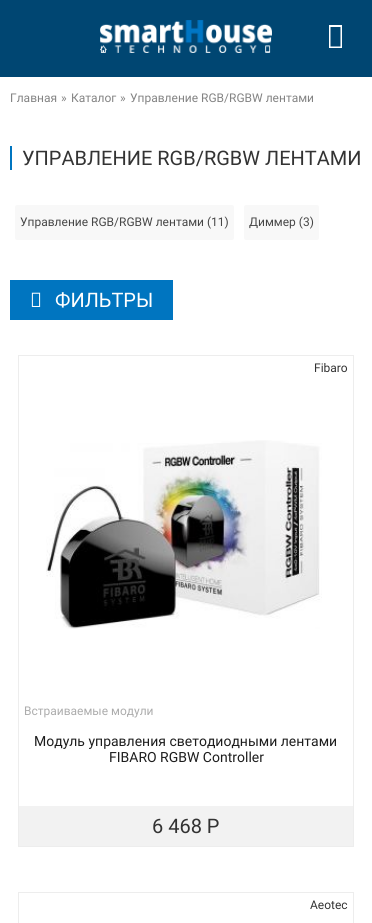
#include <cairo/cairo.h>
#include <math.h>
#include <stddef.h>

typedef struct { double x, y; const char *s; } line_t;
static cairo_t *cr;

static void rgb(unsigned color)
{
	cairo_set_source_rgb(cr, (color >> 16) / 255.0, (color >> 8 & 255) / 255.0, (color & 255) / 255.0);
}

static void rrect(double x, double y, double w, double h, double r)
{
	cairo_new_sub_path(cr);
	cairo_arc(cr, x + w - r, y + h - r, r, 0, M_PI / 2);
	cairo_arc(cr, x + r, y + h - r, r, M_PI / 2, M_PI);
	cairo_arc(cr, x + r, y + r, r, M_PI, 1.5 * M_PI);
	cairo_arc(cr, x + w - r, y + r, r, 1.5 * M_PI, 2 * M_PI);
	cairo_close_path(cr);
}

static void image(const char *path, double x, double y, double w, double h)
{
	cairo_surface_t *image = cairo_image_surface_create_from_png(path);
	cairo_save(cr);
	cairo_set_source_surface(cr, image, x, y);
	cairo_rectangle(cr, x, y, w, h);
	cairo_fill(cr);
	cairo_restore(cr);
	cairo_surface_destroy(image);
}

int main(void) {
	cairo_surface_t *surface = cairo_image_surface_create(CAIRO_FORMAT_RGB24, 372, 923);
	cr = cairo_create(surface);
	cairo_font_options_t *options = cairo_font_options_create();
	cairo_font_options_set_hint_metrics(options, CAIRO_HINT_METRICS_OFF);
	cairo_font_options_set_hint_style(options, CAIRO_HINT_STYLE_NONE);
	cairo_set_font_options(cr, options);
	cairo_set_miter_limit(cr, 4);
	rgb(0xffffff);
	cairo_paint(cr);
	rgb(0x004672);
	cairo_rectangle(cr, 0, 0, 372, 77);
	cairo_fill(cr);
	image("img/1.png", 100, 20, 172, 33);
	rgb(0xffffff);
	cairo_new_path(cr);
	cairo_move_to(cr, 329, 48);
	cairo_line_to(cr, 329, 25);
	cairo_line_to(cr, 342, 25);
	cairo_line_to(cr, 342, 48);
	cairo_close_path(cr);
	cairo_move_to(cr, 330.5, 46.5);
	cairo_line_to(cr, 340.5, 46.5);
	cairo_line_to(cr, 340.5, 27);
	cairo_line_to(cr, 330.5, 27);
	cairo_close_path(cr);
	cairo_fill(cr);
	rgb(0x0075c0);
	cairo_rectangle(cr, 10, 146, 2, 24);
	cairo_fill(cr);
	rgb(0xf8f8f8);
	rrect(15, 205, 219, 35, 2);
	cairo_fill(cr);
	rrect(244, 205, 75, 35, 2);
	cairo_fill(cr);
	rgb(0x0075c0);
	cairo_rectangle(cr, 10, 280, 163, 40);
	cairo_fill(cr);
	image("img/2.png", 31, 292, 10, 15);
	cairo_rectangle(cr, 18.5, 355.5, 335, 491);
	rgb(0xededed);
	cairo_set_line_width(cr, 1);
	cairo_stroke(cr);
	image("img/3.png", 46, 440, 276, 189);
	rgb(0xf2f2f2);
	cairo_rectangle(cr, 19, 806, 334, 40);
	cairo_fill(cr);
	cairo_rectangle(cr, 18.5, 892.5, 335, 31);
	rgb(0xededed);
	cairo_stroke(cr);
	cairo_select_font_face(cr, "Roboto", CAIRO_FONT_SLANT_NORMAL, CAIRO_FONT_WEIGHT_NORMAL);
	cairo_set_font_size(cr, 12);
	rgb(0x838383);
	{
		static const line_t items[] = {
			{10, 102, "Главная"},
			{61, 102, "»"},
			{71, 102, "Каталог"},
			{120, 102, "»"},
			{130, 102, "Управление RGB/RGBW лентами"},
		};
		for (size_t i = 0; i < sizeof items / sizeof *items; i++) {
			cairo_move_to(cr, items[i].x, items[i].y);
			cairo_show_text(cr, items[i].s);
		}
	}
	cairo_set_font_size(cr, 20);
	rgb(0x333333);
	cairo_move_to(cr, 22, 165);
	cairo_show_text(cr, "УПРАВЛЕНИЕ RGB/RGBW ЛЕНТАМИ");
	cairo_set_font_size(cr, 12);
	rgb(0x464646);
	cairo_move_to(cr, 20, 226);
	cairo_show_text(cr, "Управление RGB/RGBW лентами (11)");
	cairo_move_to(cr, 249, 226);
	cairo_show_text(cr, "Диммер (3)");
	cairo_set_font_size(cr, 20);
	rgb(0xffffff);
	cairo_move_to(cr, 55, 307);
	cairo_show_text(cr, "ФИЛЬТРЫ");
	cairo_set_font_size(cr, 12);
	rgb(0x333333);
	cairo_move_to(cr, 314, 372);
	cairo_show_text(cr, "Fibaro");
	rgb(0xacacac);
	cairo_move_to(cr, 24, 715);
	cairo_show_text(cr, "Встраиваемые модули");
	cairo_set_font_size(cr, 14);
	rgb(0x1d1d1d);
	cairo_move_to(cr, 34, 746);
	cairo_show_text(cr, "Модуль управления светодиодными лентами");
	cairo_move_to(cr, 109, 762);
	cairo_show_text(cr, "FIBARO RGBW Controller");
	cairo_set_font_size(cr, 20);
	rgb(0x333333);
	cairo_move_to(cr, 152, 833);
	cairo_show_text(cr, "6 468 Р");
	cairo_set_font_size(cr, 12);
	cairo_move_to(cr, 310, 909);
	cairo_show_text(cr, "Aeotec");
	cairo_surface_write_to_png(surface, "page.png");
	cairo_font_options_destroy(options);
	cairo_destroy(cr);
	cairo_surface_destroy(surface);
	return 0;
}
